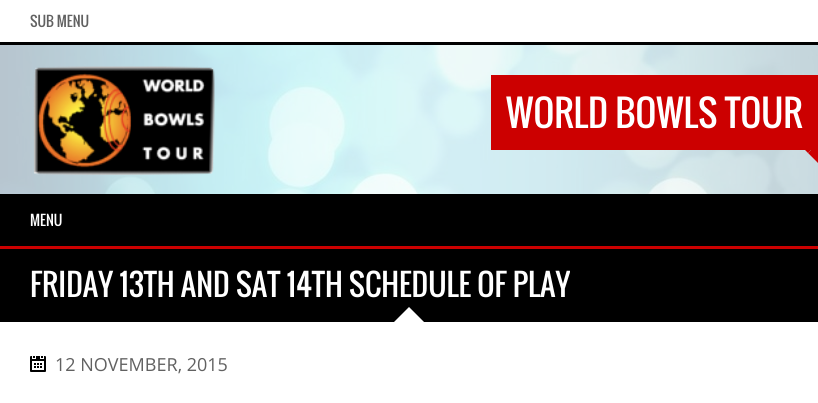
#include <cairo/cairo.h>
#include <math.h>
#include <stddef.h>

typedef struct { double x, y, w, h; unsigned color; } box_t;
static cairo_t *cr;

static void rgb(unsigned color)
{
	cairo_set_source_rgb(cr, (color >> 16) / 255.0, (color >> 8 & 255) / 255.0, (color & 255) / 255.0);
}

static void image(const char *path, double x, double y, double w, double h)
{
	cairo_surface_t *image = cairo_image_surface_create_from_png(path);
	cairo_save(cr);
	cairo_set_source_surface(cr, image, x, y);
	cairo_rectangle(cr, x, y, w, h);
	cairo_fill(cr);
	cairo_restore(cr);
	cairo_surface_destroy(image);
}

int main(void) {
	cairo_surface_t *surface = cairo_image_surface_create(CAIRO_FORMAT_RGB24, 818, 403);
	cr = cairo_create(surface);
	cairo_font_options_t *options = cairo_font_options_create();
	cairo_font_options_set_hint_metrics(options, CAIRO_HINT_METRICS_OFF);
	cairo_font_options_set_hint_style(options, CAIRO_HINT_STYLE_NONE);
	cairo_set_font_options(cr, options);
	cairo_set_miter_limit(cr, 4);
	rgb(0xffffff);
	cairo_paint(cr);
	image("img/1.png", 0, 45, 818, 149);
	rgb(0x000000);
	cairo_rectangle(cr, 0, 42, 818, 3);
	cairo_fill(cr);
	cairo_set_source_rgba(cr, 1, 1, 1, 0.7);
	cairo_rectangle(cr, 0, 45, 818, 149);
	cairo_fill(cr);
	image("img/2.png", 33, 66, 182, 109);
	rgb(0xcc0000);
	cairo_rectangle(cr, 491, 75, 327, 75);
	cairo_fill(cr);
	cairo_new_path(cr);
	cairo_move_to(cr, 798, 143);
	cairo_line_to(cr, 818, 143);
	cairo_line_to(cr, 808, 153);
	cairo_close_path(cr);
	cairo_fill(cr);
	cairo_new_path(cr);
	cairo_move_to(cr, 818, 143);
	cairo_line_to(cr, 818, 163);
	cairo_line_to(cr, 808, 153);
	cairo_close_path(cr);
	cairo_fill(cr);
	{
		static const box_t items[] = {
			{0, 194, 818, 52, 0x000000},
			{0, 246, 818, 3, 0xcc0000},
			{0, 249, 818, 73, 0x000000},
		};
		for (size_t i = 0; i < sizeof items / sizeof *items; i++) {
			rgb(items[i].color);
			cairo_rectangle(cr, items[i].x, items[i].y, items[i].w, items[i].h);
			cairo_fill(cr);
		}
	}
	rgb(0xffffff);
	cairo_new_path(cr);
	cairo_move_to(cr, 424, 322);
	cairo_line_to(cr, 394, 322);
	cairo_line_to(cr, 409, 307);
	cairo_close_path(cr);
	cairo_fill(cr);
	image("img/3.png", 30, 356, 16, 16);
	cairo_select_font_face(cr, "Oswald", CAIRO_FONT_SLANT_NORMAL, CAIRO_FONT_WEIGHT_NORMAL);
	cairo_set_font_size(cr, 14);
	rgb(0x616161);
	cairo_move_to(cr, 30, 27);
	cairo_show_text(cr, "SUB MENU");
	cairo_set_font_size(cr, 36);
	rgb(0xffffff);
	cairo_move_to(cr, 506, 128);
	cairo_show_text(cr, "WORLD BOWLS TOUR");
	cairo_set_font_size(cr, 14);
	cairo_move_to(cr, 30, 226);
	cairo_show_text(cr, "MENU");
	cairo_set_font_size(cr, 30);
	cairo_move_to(cr, 30, 297);
	cairo_show_text(cr, "FRIDAY 13TH AND SAT 14TH SCHEDULE OF PLAY");
	cairo_select_font_face(cr, "Open Sans", CAIRO_FONT_SLANT_NORMAL, CAIRO_FONT_WEIGHT_NORMAL);
	cairo_set_font_size(cr, 18);
	rgb(0x616161);
	cairo_move_to(cr, 55, 371);
	cairo_show_text(cr, "12 NOVEMBER, 2015");
	cairo_surface_write_to_png(surface, "page.png");
	cairo_font_options_destroy(options);
	cairo_destroy(cr);
	cairo_surface_destroy(surface);
	return 0;
}
